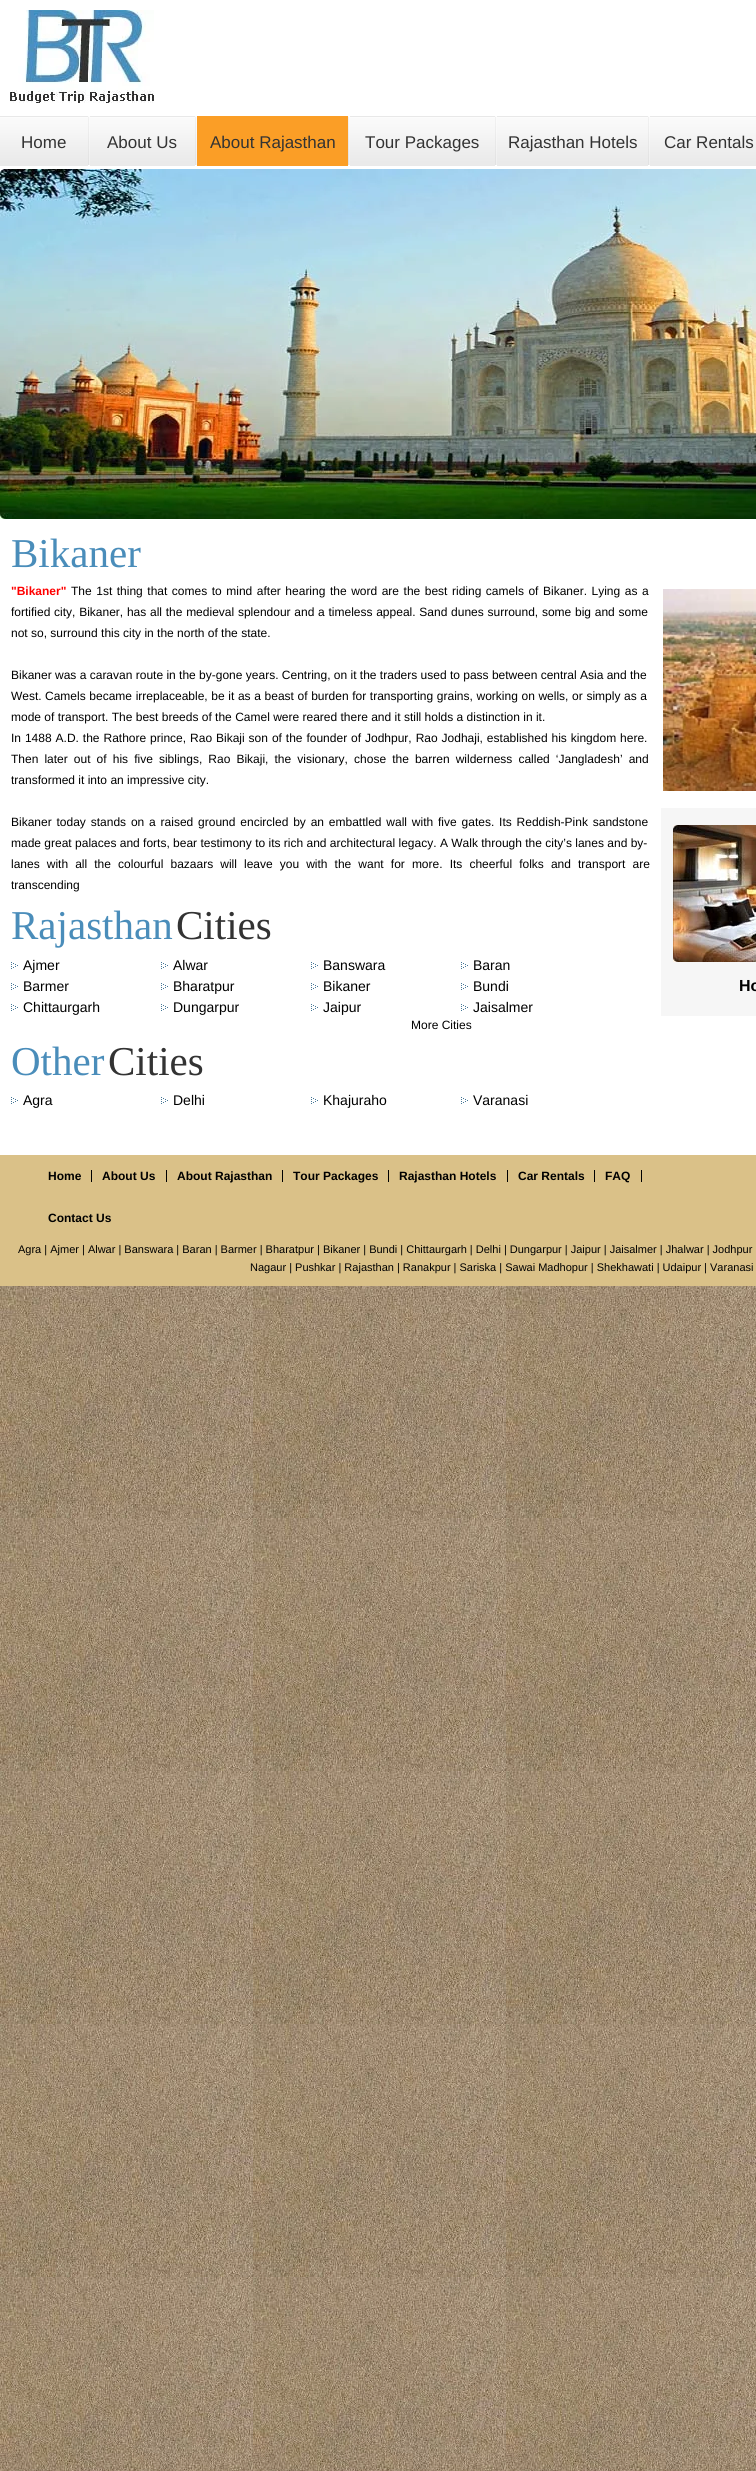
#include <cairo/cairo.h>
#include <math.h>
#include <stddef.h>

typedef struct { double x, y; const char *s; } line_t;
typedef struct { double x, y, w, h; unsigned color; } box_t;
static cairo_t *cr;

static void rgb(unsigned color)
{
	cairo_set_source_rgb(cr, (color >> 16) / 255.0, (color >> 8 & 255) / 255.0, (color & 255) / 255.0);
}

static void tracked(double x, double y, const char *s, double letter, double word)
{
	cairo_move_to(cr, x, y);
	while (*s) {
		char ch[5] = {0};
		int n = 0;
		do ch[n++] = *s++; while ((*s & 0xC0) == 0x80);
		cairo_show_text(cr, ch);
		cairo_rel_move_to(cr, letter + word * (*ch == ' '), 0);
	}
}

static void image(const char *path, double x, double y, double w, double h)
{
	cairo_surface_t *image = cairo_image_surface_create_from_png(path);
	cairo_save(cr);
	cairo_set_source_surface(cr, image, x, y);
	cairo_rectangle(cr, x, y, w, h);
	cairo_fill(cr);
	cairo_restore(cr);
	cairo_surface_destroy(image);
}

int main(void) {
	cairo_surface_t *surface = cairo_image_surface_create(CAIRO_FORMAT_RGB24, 756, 2471);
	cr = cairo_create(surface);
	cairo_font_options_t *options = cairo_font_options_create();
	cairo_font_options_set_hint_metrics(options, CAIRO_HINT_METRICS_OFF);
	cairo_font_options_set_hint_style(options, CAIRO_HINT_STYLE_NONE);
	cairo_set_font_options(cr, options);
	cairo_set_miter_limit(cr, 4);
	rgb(0xffffff);
	cairo_paint(cr);
	image("img/1.png", 0, 1286, 756, 1185);
	image("img/2.png", 10, 10, 144, 93);
	image("img/3.png", 0, 116, 88, 50);
	image("img/4.png", 88, 116, 2, 49);
	image("img/5.png", 90, 116, 105, 50);
	image("img/4.png", 195, 116, 2, 49);
	rgb(0xfb9e26);
	cairo_rectangle(cr, 197, 116, 151, 50);
	cairo_fill(cr);
	image("img/4.png", 348, 116, 2, 49);
	image("img/6.png", 350, 116, 145, 50);
	image("img/4.png", 495, 116, 2, 49);
	image("img/7.png", 497, 116, 151, 50);
	image("img/4.png", 648, 116, 2, 49);
	image("img/8.png", 650, 116, 106, 50);
	image("img/9.png", 0, 169, 756, 350);
	image("img/10.png", 11, 962, 7, 7);
	image("img/10.png", 161, 962, 7, 7);
	image("img/10.png", 311, 962, 7, 7);
	image("img/10.png", 461, 962, 7, 7);
	image("img/10.png", 11, 983, 7, 7);
	image("img/10.png", 161, 983, 7, 7);
	image("img/10.png", 311, 983, 7, 7);
	image("img/10.png", 461, 983, 7, 7);
	image("img/10.png", 11, 1004, 7, 7);
	image("img/10.png", 161, 1004, 7, 7);
	image("img/10.png", 311, 1004, 7, 7);
	image("img/10.png", 461, 1004, 7, 7);
	image("img/10.png", 11, 1097, 7, 7);
	image("img/10.png", 161, 1097, 7, 7);
	image("img/10.png", 311, 1097, 7, 7);
	image("img/10.png", 461, 1097, 7, 7);
	image("img/11.png", 663, 589, 93, 202);
	rgb(0xf6f6f6);
	cairo_rectangle(cr, 661, 808, 95, 208);
	cairo_fill(cr);
	image("img/12.png", 673, 825, 83, 137);
	{
		static const box_t items[] = {
			{0, 1155, 756, 131, 0xdac188},
			{91, 1170, 1, 12, 0x000000},
			{166, 1170, 1, 12, 0x000000},
			{282, 1170, 1, 12, 0x000000},
			{388, 1170, 1, 12, 0x000000},
			{507, 1170, 1, 12, 0x000000},
			{594, 1170, 1, 12, 0x000000},
			{641, 1170, 1, 12, 0x000000},
		};
		for (size_t i = 0; i < sizeof items / sizeof *items; i++) {
			rgb(items[i].color);
			cairo_rectangle(cr, items[i].x, items[i].y, items[i].w, items[i].h);
			cairo_fill(cr);
		}
	}
	cairo_select_font_face(cr, "Liberation Sans", CAIRO_FONT_SLANT_NORMAL, CAIRO_FONT_WEIGHT_NORMAL);
	cairo_set_font_size(cr, 17);
	rgb(0x333333);
	{
		static const line_t items[] = {
			{21, 148, "Home"},
			{107, 148, "About Us"},
			{210, 148, "About Rajasthan"},
			{365, 148, "Tour Packages"},
			{508, 148, "Rajasthan Hotels"},
			{664, 148, "Car Rentals"},
		};
		for (size_t i = 0; i < sizeof items / sizeof *items; i++) {
			cairo_move_to(cr, items[i].x, items[i].y);
			cairo_show_text(cr, items[i].s);
		}
	}
	cairo_select_font_face(cr, "Liberation Serif", CAIRO_FONT_SLANT_NORMAL, CAIRO_FONT_WEIGHT_NORMAL);
	cairo_set_font_size(cr, 41);
	rgb(0x4a8dba);
	cairo_move_to(cr, 11, 567);
	cairo_show_text(cr, "Bikaner");
	cairo_select_font_face(cr, "Liberation Sans", CAIRO_FONT_SLANT_NORMAL, CAIRO_FONT_WEIGHT_BOLD);
	cairo_set_font_size(cr, 12);
	rgb(0xff0000);
	cairo_move_to(cr, 11, 595);
	cairo_show_text(cr, "\"Bikaner\"");
	cairo_select_font_face(cr, "Liberation Sans", CAIRO_FONT_SLANT_NORMAL, CAIRO_FONT_WEIGHT_NORMAL);
	rgb(0x000000);
	tracked(71, 595, "The 1st thing that comes to mind after hearing the word are the best riding camels of Bikaner. Lying as a", 0, 1.2);
	tracked(11, 616, "fortified city, Bikaner, has all the medieval splendour and a timeless appeal. Sand dunes surround, some big and some", 0, 0.4);
	{
		static const line_t items[] = {
			{11, 637, "not so, surround this city in the north of the state."},
			{11, 679, "Bikaner was a caravan route in the by-gone years. Centring, on it the traders used to pass between central Asia and the"},
			{11, 700, "West."},
		};
		for (size_t i = 0; i < sizeof items / sizeof *items; i++) {
			cairo_move_to(cr, items[i].x, items[i].y);
			cairo_show_text(cr, items[i].s);
		}
	}
	tracked(45, 700, "Camels became irreplaceable, be it as a beast of burden for transporting grains, working on wells, or simply as a", 0, 0.3);
	cairo_move_to(cr, 11, 721);
	cairo_show_text(cr, "mode of transport. The best breeds of the Camel were reared there and it still holds a distinction in it.");
	tracked(11, 742, "In 1488 A.D. the Rathore prince, Rao Bikaji son of the founder of Jodhpur, Rao Jodhaji, established his kingdom here.", 0, 0.6);
	tracked(11, 763, "Then later out of his five siblings, Rao Bikaji, the visionary, chose the barren wilderness called ‘Jangladesh’ and", 0, 2.75);
	cairo_move_to(cr, 11, 784);
	cairo_show_text(cr, "transformed it into an impressive city.");
	tracked(11, 826, "Bikaner today stands on a raised ground encircled by an embattled wall with five gates. Its Reddish-Pink sandstone", 0, 1.5);
	cairo_move_to(cr, 11, 847);
	cairo_show_text(cr, "made great palaces and forts, bear testimony to its rich and architectural legacy. A Walk through the city’s lanes and by-");
	tracked(11, 868, "lanes with all the colourful bazaars will leave you with the want for more. Its cheerful folks and transport are", 0, 3.75);
	cairo_move_to(cr, 11, 889);
	cairo_show_text(cr, "transcending");
	cairo_select_font_face(cr, "Liberation Serif", CAIRO_FONT_SLANT_NORMAL, CAIRO_FONT_WEIGHT_NORMAL);
	cairo_set_font_size(cr, 41);
	rgb(0x4a8dba);
	cairo_move_to(cr, 11, 939);
	cairo_show_text(cr, "Rajasthan");
	rgb(0x333333);
	cairo_move_to(cr, 176, 939);
	cairo_show_text(cr, "Cities");
	cairo_select_font_face(cr, "Liberation Sans", CAIRO_FONT_SLANT_NORMAL, CAIRO_FONT_WEIGHT_NORMAL);
	cairo_set_font_size(cr, 14);
	rgb(0x000000);
	{
		static const line_t items[] = {
			{23, 970, "Ajmer"},
			{173, 970, "Alwar"},
			{323, 970, "Banswara"},
			{473, 970, "Baran"},
			{23, 991, "Barmer"},
			{173, 991, "Bharatpur"},
			{323, 991, "Bikaner"},
			{473, 991, "Bundi"},
			{23, 1012, "Chittaurgarh"},
			{173, 1012, "Dungarpur"},
			{323, 1012, "Jaipur"},
			{473, 1012, "Jaisalmer"},
		};
		for (size_t i = 0; i < sizeof items / sizeof *items; i++) {
			cairo_move_to(cr, items[i].x, items[i].y);
			cairo_show_text(cr, items[i].s);
		}
	}
	cairo_set_font_size(cr, 12);
	cairo_move_to(cr, 411, 1029);
	cairo_show_text(cr, "More Cities");
	cairo_select_font_face(cr, "Liberation Serif", CAIRO_FONT_SLANT_NORMAL, CAIRO_FONT_WEIGHT_NORMAL);
	cairo_set_font_size(cr, 41);
	rgb(0x4a8dba);
	cairo_move_to(cr, 11, 1075);
	cairo_show_text(cr, "Other");
	rgb(0x333333);
	cairo_move_to(cr, 108, 1075);
	cairo_show_text(cr, "Cities");
	cairo_select_font_face(cr, "Liberation Sans", CAIRO_FONT_SLANT_NORMAL, CAIRO_FONT_WEIGHT_NORMAL);
	cairo_set_font_size(cr, 14);
	rgb(0x000000);
	{
		static const line_t items[] = {
			{23, 1105, "Agra"},
			{173, 1105, "Delhi"},
			{323, 1105, "Khajuraho"},
			{473, 1105, "Varanasi"},
		};
		for (size_t i = 0; i < sizeof items / sizeof *items; i++) {
			cairo_move_to(cr, items[i].x, items[i].y);
			cairo_show_text(cr, items[i].s);
		}
	}
	cairo_select_font_face(cr, "Liberation Sans", CAIRO_FONT_SLANT_NORMAL, CAIRO_FONT_WEIGHT_BOLD);
	cairo_set_font_size(cr, 16);
	cairo_move_to(cr, 739, 991);
	cairo_show_text(cr, "Ho");
	cairo_set_font_size(cr, 12);
	{
		static const line_t items[] = {
			{48, 1180, "Home"},
			{102, 1180, "About Us"},
			{177, 1180, "About Rajasthan"},
			{293, 1180, "Tour Packages"},
			{399, 1180, "Rajasthan Hotels"},
			{518, 1180, "Car Rentals"},
			{605, 1180, "FAQ"},
			{48, 1222, "Contact Us"},
		};
		for (size_t i = 0; i < sizeof items / sizeof *items; i++) {
			cairo_move_to(cr, items[i].x, items[i].y);
			cairo_show_text(cr, items[i].s);
		}
	}
	cairo_select_font_face(cr, "Liberation Sans", CAIRO_FONT_SLANT_NORMAL, CAIRO_FONT_WEIGHT_NORMAL);
	cairo_set_font_size(cr, 11);
	cairo_move_to(cr, 18, 1253);
	cairo_show_text(cr, "Agra | Ajmer | Alwar | Banswara | Baran | Barmer | Bharatpur | Bikaner | Bundi | Chittaurgarh | Delhi | Dungarpur | Jaipur | Jaisalmer | Jhalwar | Jodhpur");
	cairo_move_to(cr, 250, 1271);
	cairo_show_text(cr, "Nagaur | Pushkar | Rajasthan | Ranakpur | Sariska | Sawai Madhopur | Shekhawati | Udaipur | Varanasi");
	cairo_surface_write_to_png(surface, "page.png");
	cairo_font_options_destroy(options);
	cairo_destroy(cr);
	cairo_surface_destroy(surface);
	return 0;
}
